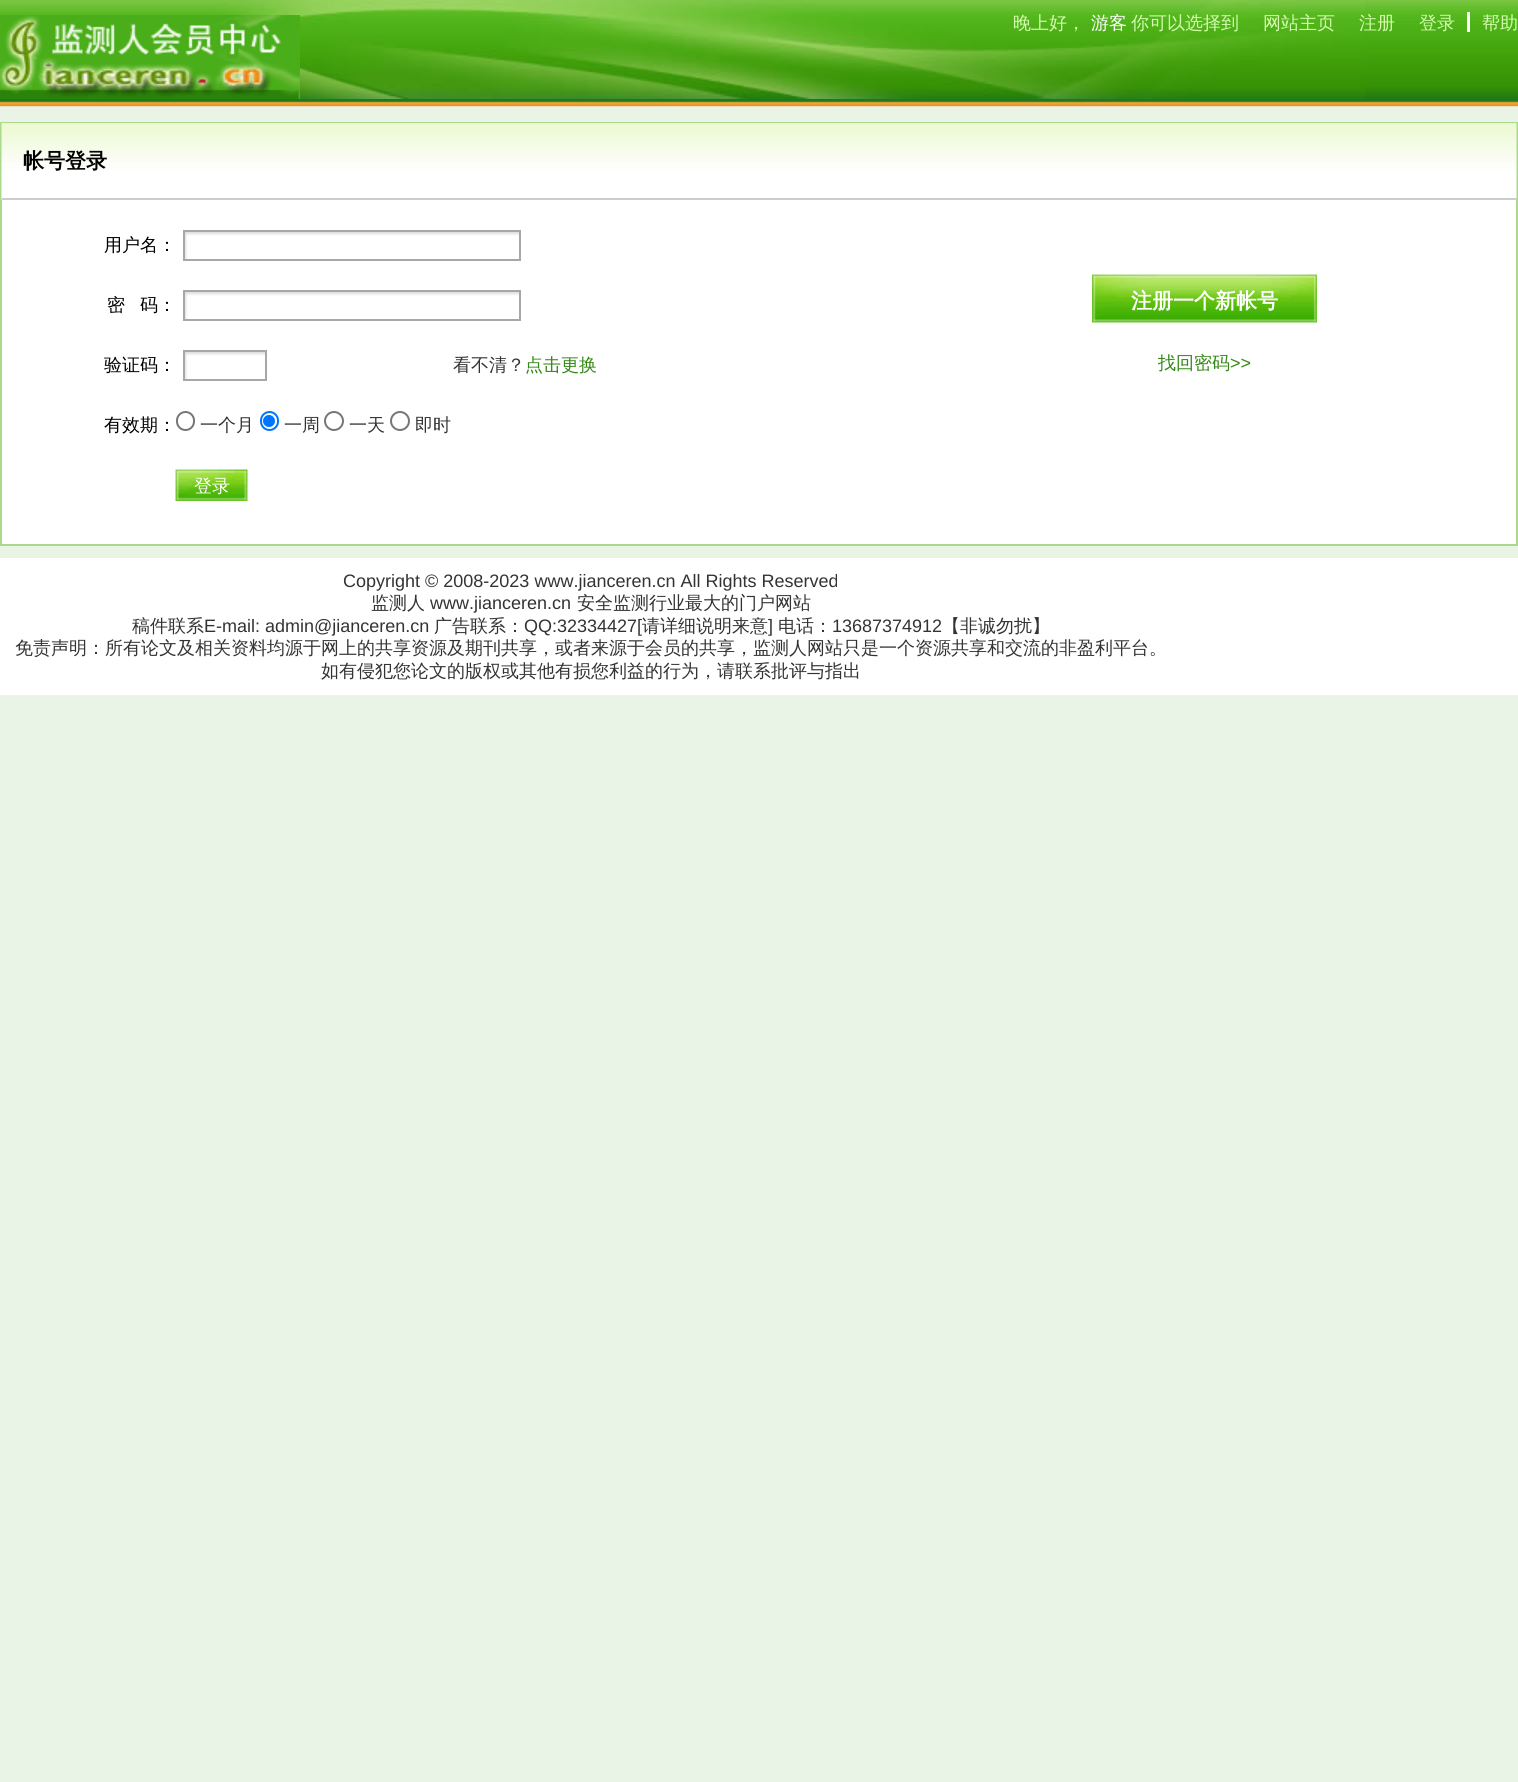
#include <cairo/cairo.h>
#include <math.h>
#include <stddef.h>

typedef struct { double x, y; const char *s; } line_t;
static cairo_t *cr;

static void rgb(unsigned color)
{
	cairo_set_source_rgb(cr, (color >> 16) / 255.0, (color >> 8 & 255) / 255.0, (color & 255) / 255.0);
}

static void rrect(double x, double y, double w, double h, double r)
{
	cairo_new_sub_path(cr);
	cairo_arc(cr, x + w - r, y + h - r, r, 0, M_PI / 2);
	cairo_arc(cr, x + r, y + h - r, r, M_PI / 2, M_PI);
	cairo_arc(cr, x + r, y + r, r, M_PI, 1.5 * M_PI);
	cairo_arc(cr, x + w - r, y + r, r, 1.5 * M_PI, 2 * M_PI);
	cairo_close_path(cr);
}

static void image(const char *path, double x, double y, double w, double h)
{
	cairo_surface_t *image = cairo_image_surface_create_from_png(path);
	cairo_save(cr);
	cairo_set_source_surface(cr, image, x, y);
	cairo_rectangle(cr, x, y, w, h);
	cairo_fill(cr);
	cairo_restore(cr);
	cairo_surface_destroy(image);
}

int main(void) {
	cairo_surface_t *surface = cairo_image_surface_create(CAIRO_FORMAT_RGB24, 1518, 1782);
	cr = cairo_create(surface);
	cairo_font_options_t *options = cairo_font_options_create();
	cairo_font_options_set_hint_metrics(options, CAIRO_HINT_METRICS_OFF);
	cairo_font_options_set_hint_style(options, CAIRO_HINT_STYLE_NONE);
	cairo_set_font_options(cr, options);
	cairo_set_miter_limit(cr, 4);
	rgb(0xe9f4e6);
	cairo_paint(cr);
	image("img/1.png", 0, 0, 1518, 107);
	image("img/2.png", 0, 0, 1365, 99);
	image("img/3.png", 0, 15, 300, 84);
	rgb(0xffffff);
	cairo_rectangle(cr, 1467, 12, 3, 20);
	cairo_fill(cr);
	cairo_rectangle(cr, 2, 200, 1514, 344);
	cairo_fill(cr);
	cairo_rectangle(cr, 1, 123, 1516, 422);
	rgb(0xacd98c);
	cairo_stroke(cr);
	image("img/4.png", 1, 123, 1516, 77);
	rgb(0xcccccc);
	cairo_rectangle(cr, 2, 198, 1515, 2);
	cairo_fill(cr);
	image("img/5.png", 185, 232, 334, 27);
	cairo_rectangle(cr, 184, 231, 336, 29);
	rgb(0xa7a6aa);
	cairo_stroke(cr);
	image("img/5.png", 185, 292, 334, 27);
	cairo_rectangle(cr, 184, 291, 336, 29);
	cairo_stroke(cr);
	image("img/6.png", 185, 352, 80, 27);
	cairo_rectangle(cr, 184, 351, 82, 29);
	cairo_stroke(cr);
	rrect(177, 412, 17, 18, 8.5);
	rgb(0x767676);
	cairo_stroke(cr);
	rrect(261, 412, 17, 18, 8.5);
	rgb(0x0075ff);
	cairo_stroke(cr);
	cairo_arc(cr, 269, 421, 6, 0, 2 * M_PI);
	cairo_fill(cr);
	cairo_arc(cr, 334, 421, 9, 0, 2 * M_PI);
	rgb(0x767676);
	cairo_stroke(cr);
	cairo_arc(cr, 400, 421, 9, 0, 2 * M_PI);
	cairo_stroke(cr);
	image("img/7.png", 175, 469, 73, 32);
	image("img/8.png", 1092, 274, 225, 49);
	rgb(0xffffff);
	cairo_rectangle(cr, 0, 558, 1518, 137);
	cairo_fill(cr);
	cairo_select_font_face(cr, "WenQuanYi Zen Hei Medium", CAIRO_FONT_SLANT_NORMAL, CAIRO_FONT_WEIGHT_NORMAL);
	cairo_set_font_size(cr, 18);
	rgb(0xd3fcae);
	cairo_move_to(cr, 1013, 29);
	cairo_show_text(cr, "晚上好，");
	rgb(0xffffff);
	cairo_move_to(cr, 1091, 29);
	cairo_show_text(cr, "游客");
	rgb(0xd3fcae);
	{
		static const line_t items[] = {
			{1131, 29, "你可以选择到"},
			{1263, 29, "网站主页"},
			{1359, 29, "注册"},
			{1419, 29, "登录"},
			{1482, 29, "帮助"},
		};
		for (size_t i = 0; i < sizeof items / sizeof *items; i++) {
			cairo_move_to(cr, items[i].x, items[i].y);
			cairo_show_text(cr, items[i].s);
		}
	}
	cairo_select_font_face(cr, "WenQuanYi Zen Hei", CAIRO_FONT_SLANT_NORMAL, CAIRO_FONT_WEIGHT_BOLD);
	cairo_set_font_size(cr, 21);
	rgb(0x000000);
	cairo_move_to(cr, 23, 168);
	cairo_show_text(cr, "帐号登录");
	cairo_select_font_face(cr, "WenQuanYi Zen Hei Medium", CAIRO_FONT_SLANT_NORMAL, CAIRO_FONT_WEIGHT_NORMAL);
	cairo_set_font_size(cr, 18);
	{
		static const line_t items[] = {
			{104, 251, "用户名："},
			{107, 311, "密"},
			{140, 311, "码："},
			{104, 371, "验证码："},
		};
		for (size_t i = 0; i < sizeof items / sizeof *items; i++) {
			cairo_move_to(cr, items[i].x, items[i].y);
			cairo_show_text(cr, items[i].s);
		}
	}
	rgb(0x333333);
	cairo_move_to(cr, 453, 371);
	cairo_show_text(cr, "看不清？");
	rgb(0x338815);
	cairo_move_to(cr, 525, 371);
	cairo_show_text(cr, "点击更换");
	rgb(0x000000);
	cairo_move_to(cr, 104, 431);
	cairo_show_text(cr, "有效期：");
	rgb(0x333333);
	{
		static const line_t items[] = {
			{200, 431, "一个月"},
			{284, 431, "一周"},
			{349, 431, "一天"},
			{415, 431, "即时"},
		};
		for (size_t i = 0; i < sizeof items / sizeof *items; i++) {
			cairo_move_to(cr, items[i].x, items[i].y);
			cairo_show_text(cr, items[i].s);
		}
	}
	rgb(0xffffff);
	cairo_move_to(cr, 194, 492);
	cairo_show_text(cr, "登录");
	cairo_select_font_face(cr, "WenQuanYi Zen Hei", CAIRO_FONT_SLANT_NORMAL, CAIRO_FONT_WEIGHT_BOLD);
	cairo_set_font_size(cr, 21);
	cairo_move_to(cr, 1131, 308);
	cairo_show_text(cr, "注册一个新帐号");
	cairo_select_font_face(cr, "WenQuanYi Zen Hei Medium", CAIRO_FONT_SLANT_NORMAL, CAIRO_FONT_WEIGHT_NORMAL);
	cairo_set_font_size(cr, 18);
	rgb(0x338815);
	cairo_move_to(cr, 1158, 369);
	cairo_show_text(cr, "找回密码");
	cairo_select_font_face(cr, "Liberation Sans", CAIRO_FONT_SLANT_NORMAL, CAIRO_FONT_WEIGHT_NORMAL);
	cairo_move_to(cr, 1230, 369);
	cairo_show_text(cr, ">>");
	rgb(0x333333);
	cairo_move_to(cr, 343, 587);
	cairo_show_text(cr, "Copyright © 2008-2023 www.jianceren.cn All Rights Reserved");
	cairo_select_font_face(cr, "WenQuanYi Zen Hei Medium", CAIRO_FONT_SLANT_NORMAL, CAIRO_FONT_WEIGHT_NORMAL);
	cairo_move_to(cr, 371, 609);
	cairo_show_text(cr, "监测人");
	cairo_select_font_face(cr, "Liberation Sans", CAIRO_FONT_SLANT_NORMAL, CAIRO_FONT_WEIGHT_NORMAL);
	cairo_move_to(cr, 430, 609);
	cairo_show_text(cr, "www.jianceren.cn");
	cairo_select_font_face(cr, "WenQuanYi Zen Hei Medium", CAIRO_FONT_SLANT_NORMAL, CAIRO_FONT_WEIGHT_NORMAL);
	cairo_move_to(cr, 577, 609);
	cairo_show_text(cr, "安全监测行业最大的门户网站");
	cairo_move_to(cr, 132, 632);
	cairo_show_text(cr, "稿件联系");
	cairo_select_font_face(cr, "Liberation Sans", CAIRO_FONT_SLANT_NORMAL, CAIRO_FONT_WEIGHT_NORMAL);
	cairo_move_to(cr, 204, 632);
	cairo_show_text(cr, "E-mail: admin@jianceren.cn");
	cairo_select_font_face(cr, "WenQuanYi Zen Hei Medium", CAIRO_FONT_SLANT_NORMAL, CAIRO_FONT_WEIGHT_NORMAL);
	cairo_move_to(cr, 434, 632);
	cairo_show_text(cr, "广告联系：");
	cairo_select_font_face(cr, "Liberation Sans", CAIRO_FONT_SLANT_NORMAL, CAIRO_FONT_WEIGHT_NORMAL);
	cairo_move_to(cr, 524, 632);
	cairo_show_text(cr, "QQ:32334427[");
	cairo_select_font_face(cr, "WenQuanYi Zen Hei Medium", CAIRO_FONT_SLANT_NORMAL, CAIRO_FONT_WEIGHT_NORMAL);
	cairo_move_to(cr, 642, 632);
	cairo_show_text(cr, "请详细说明来意");
	cairo_select_font_face(cr, "Liberation Sans", CAIRO_FONT_SLANT_NORMAL, CAIRO_FONT_WEIGHT_NORMAL);
	cairo_move_to(cr, 768, 632);
	cairo_show_text(cr, "]");
	cairo_select_font_face(cr, "WenQuanYi Zen Hei Medium", CAIRO_FONT_SLANT_NORMAL, CAIRO_FONT_WEIGHT_NORMAL);
	cairo_move_to(cr, 778, 632);
	cairo_show_text(cr, "电话：");
	cairo_select_font_face(cr, "Liberation Sans", CAIRO_FONT_SLANT_NORMAL, CAIRO_FONT_WEIGHT_NORMAL);
	cairo_move_to(cr, 832, 632);
	cairo_show_text(cr, "13687374912");
	cairo_select_font_face(cr, "WenQuanYi Zen Hei Medium", CAIRO_FONT_SLANT_NORMAL, CAIRO_FONT_WEIGHT_NORMAL);
	{
		static const line_t items[] = {
			{942, 632, "【非诚勿扰】"},
			{15, 654, "免责声明：所有论文及相关资料均源于网上的共享资源及期刊共享，或者来源于会员的共享，监测人网站只是一个资源共享和交流的非盈利平台。"},
			{321, 677, "如有侵犯您论文的版权或其他有损您利益的行为，请联系批评与指出"},
		};
		for (size_t i = 0; i < sizeof items / sizeof *items; i++) {
			cairo_move_to(cr, items[i].x, items[i].y);
			cairo_show_text(cr, items[i].s);
		}
	}
	cairo_surface_write_to_png(surface, "page.png");
	cairo_font_options_destroy(options);
	cairo_destroy(cr);
	cairo_surface_destroy(surface);
	return 0;
}
